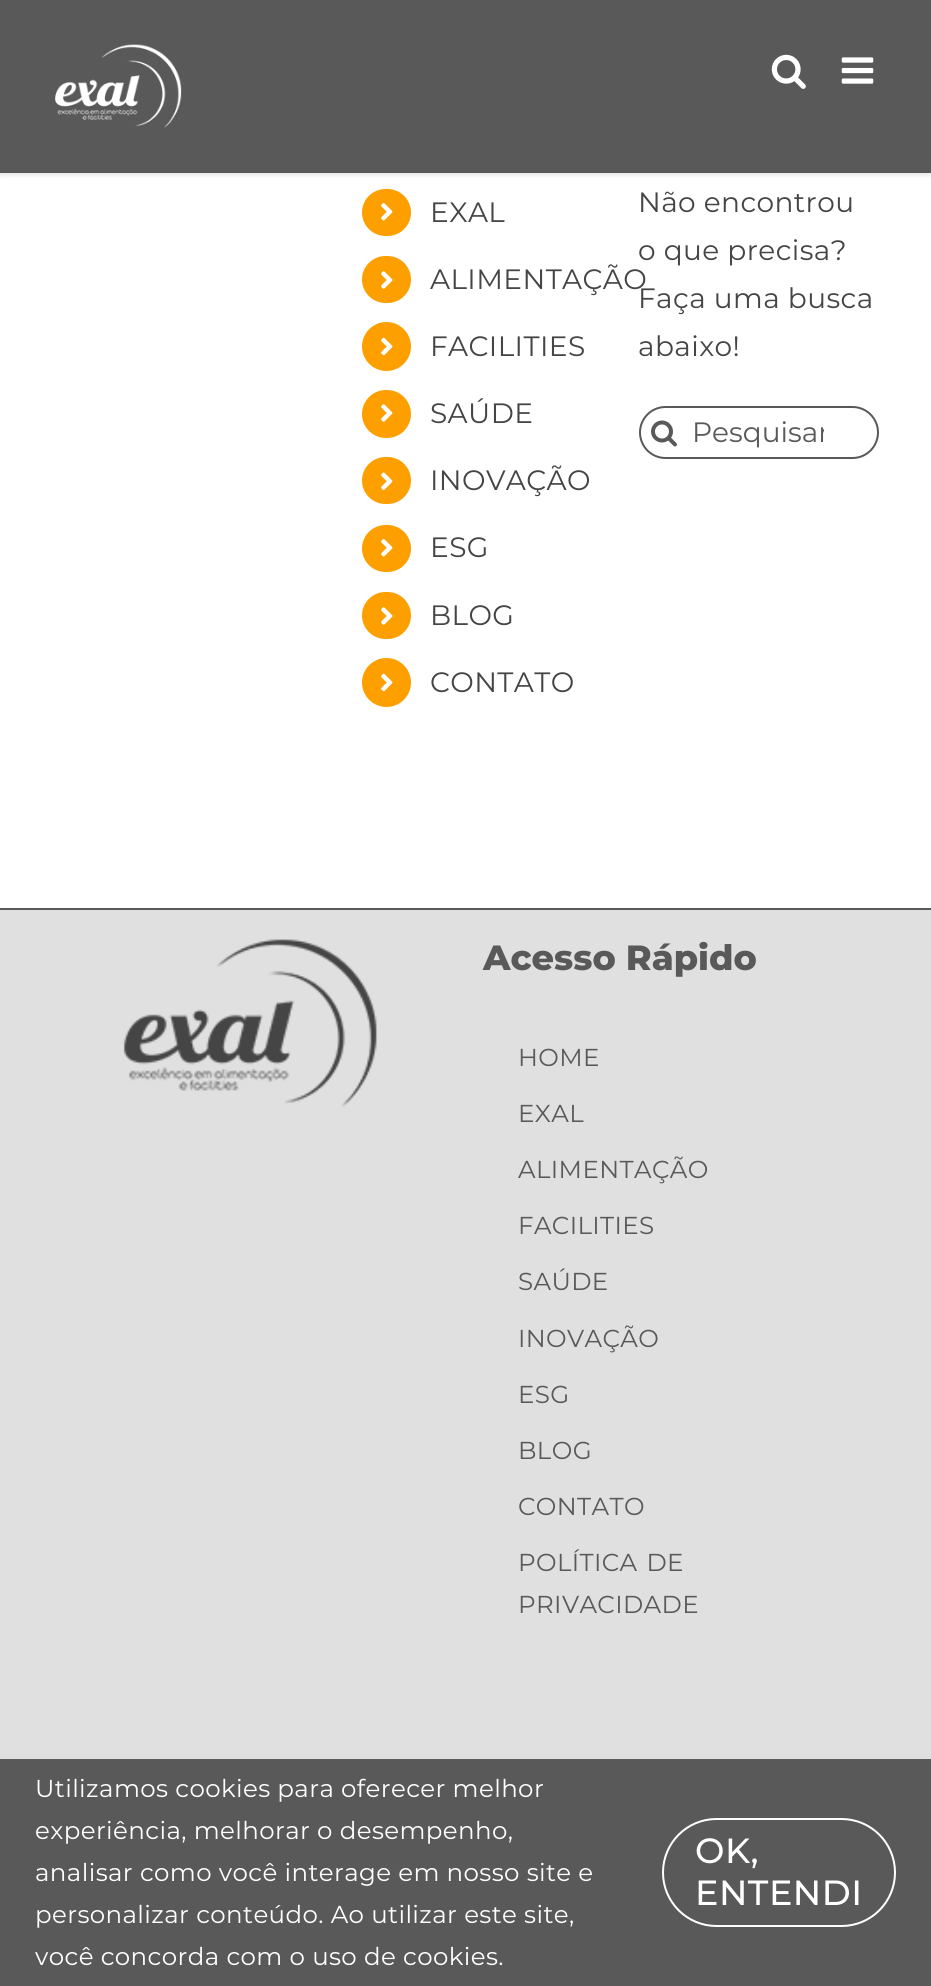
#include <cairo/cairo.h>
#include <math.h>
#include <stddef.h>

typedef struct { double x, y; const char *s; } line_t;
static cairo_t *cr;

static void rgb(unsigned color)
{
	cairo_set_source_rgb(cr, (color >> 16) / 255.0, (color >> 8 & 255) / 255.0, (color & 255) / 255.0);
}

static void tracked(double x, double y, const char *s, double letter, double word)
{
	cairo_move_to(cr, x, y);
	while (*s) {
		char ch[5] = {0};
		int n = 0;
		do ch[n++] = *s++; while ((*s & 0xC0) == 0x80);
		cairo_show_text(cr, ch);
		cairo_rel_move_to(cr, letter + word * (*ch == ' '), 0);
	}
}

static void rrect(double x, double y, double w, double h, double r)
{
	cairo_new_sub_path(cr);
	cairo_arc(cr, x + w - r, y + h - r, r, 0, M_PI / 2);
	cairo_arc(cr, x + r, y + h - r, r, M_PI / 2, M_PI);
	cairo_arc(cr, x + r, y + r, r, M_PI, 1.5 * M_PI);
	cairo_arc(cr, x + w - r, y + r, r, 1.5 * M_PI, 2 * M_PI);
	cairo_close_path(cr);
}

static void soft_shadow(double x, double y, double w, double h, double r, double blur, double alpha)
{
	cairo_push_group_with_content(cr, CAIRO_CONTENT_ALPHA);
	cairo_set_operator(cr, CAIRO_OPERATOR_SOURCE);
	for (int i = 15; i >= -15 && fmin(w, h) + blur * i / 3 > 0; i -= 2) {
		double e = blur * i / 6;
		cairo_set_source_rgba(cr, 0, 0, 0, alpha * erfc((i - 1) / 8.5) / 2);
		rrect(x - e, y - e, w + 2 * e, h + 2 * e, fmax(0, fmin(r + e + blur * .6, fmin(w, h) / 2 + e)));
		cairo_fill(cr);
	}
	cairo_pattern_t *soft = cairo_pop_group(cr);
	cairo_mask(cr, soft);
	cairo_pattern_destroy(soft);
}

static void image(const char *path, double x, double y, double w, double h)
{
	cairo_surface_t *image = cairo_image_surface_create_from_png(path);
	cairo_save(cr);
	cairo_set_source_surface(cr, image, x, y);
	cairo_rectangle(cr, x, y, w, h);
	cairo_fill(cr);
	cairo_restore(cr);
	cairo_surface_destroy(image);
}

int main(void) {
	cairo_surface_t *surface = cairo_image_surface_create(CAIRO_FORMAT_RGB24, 931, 1986);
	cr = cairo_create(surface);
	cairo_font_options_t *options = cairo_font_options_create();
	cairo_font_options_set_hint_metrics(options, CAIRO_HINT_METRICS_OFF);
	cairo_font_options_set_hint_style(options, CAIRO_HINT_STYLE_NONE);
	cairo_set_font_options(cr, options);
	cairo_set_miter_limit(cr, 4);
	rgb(0xffffff);
	cairo_paint(cr);
	rgb(0x000000);
	soft_shadow(0, 2, 931, 173, 0, 2.5, 0.12);
	rgb(0x595959);
	cairo_rectangle(cr, 0, 0, 931, 173);
	cairo_fill(cr);
	image("img/1.png", 55, 44, 127, 84);
	image("img/2.png", 771, 54, 35, 35);
	image("img/3.png", 841, 57, 33, 27);
	rgb(0xfe9f00);
	rrect(362, 189, 49, 47, 23.5);
	cairo_fill(cr);
	image("img/4.png", 381, 203, 12, 18);
	rrect(362, 256, 49, 47, 23.5);
	cairo_fill(cr);
	image("img/5.png", 381, 271, 12, 18);
	cairo_arc(cr, 386.5, 346.5, 24.5, 0, 2 * M_PI);
	cairo_fill(cr);
	image("img/6.png", 381, 337, 12, 19);
	rrect(362, 390, 49, 48, 24);
	cairo_fill(cr);
	image("img/5.png", 381, 404, 12, 18);
	rrect(362, 457, 49, 47, 23.5);
	cairo_fill(cr);
	image("img/7.png", 381, 472, 12, 18);
	rrect(362, 525, 49, 47, 23.5);
	cairo_fill(cr);
	image("img/4.png", 381, 539, 12, 18);
	rrect(362, 592, 49, 47, 23.5);
	cairo_fill(cr);
	image("img/5.png", 381, 607, 12, 18);
	cairo_arc(cr, 386.5, 682.5, 24.5, 0, 2 * M_PI);
	cairo_fill(cr);
	image("img/6.png", 381, 673, 12, 19);
	rrect(640, 407, 238, 51, 25.5);
	rgb(0x595959);
	cairo_stroke(cr);
	image("img/8.png", 651, 420, 26, 27);
	rgb(0xe0e0e0);
	cairo_rectangle(cr, 0, 910, 931, 849);
	cairo_fill(cr);
	rgb(0x595959);
	cairo_rectangle(cr, 0, 908, 931, 2);
	cairo_fill(cr);
	image("img/9.png", 123, 939, 254, 168);
	cairo_rectangle(cr, 0, 1759, 931, 227);
	cairo_fill(cr);
	rrect(663, 1819, 232, 107, 53.5);
	rgb(0xffffff);
	cairo_stroke(cr);
	cairo_select_font_face(cr, "Montserrat", CAIRO_FONT_SLANT_NORMAL, CAIRO_FONT_WEIGHT_NORMAL);
	cairo_set_font_size(cr, 28);
	rgb(0x454545);
	{
		static const line_t items[] = {
			{430, 222, "EXAL"},
			{430, 289, "ALIMENTAÇÃO"},
			{430, 356, "FACILITIES"},
			{430, 423, "SAÚDE"},
			{430, 490, "INOVAÇÃO"},
			{430, 557, "ESG"},
			{430, 625, "BLOG"},
			{430, 692, "CONTATO"},
			{638, 212, "Não encontrou"},
			{638, 260, "o que precisa?"},
			{638, 308, "Faça uma busca"},
			{638, 356, "abaixo!"},
		};
		for (size_t i = 0; i < sizeof items / sizeof *items; i++) {
			tracked(items[i].x, items[i].y, items[i].s, 0.4, 0);
		}
	}
	cairo_save(cr);
	cairo_rectangle(cr, 693, 417, 131, 33);
	cairo_clip(cr);
	rgb(0x595959);
	cairo_move_to(cr, 692, 442);
	cairo_show_text(cr, "Pesquisar");
	cairo_restore(cr);
	cairo_select_font_face(cr, "Montserrat ExtraBold", CAIRO_FONT_SLANT_NORMAL, CAIRO_FONT_WEIGHT_NORMAL);
	cairo_set_font_size(cr, 35);
	rgb(0x595959);
	cairo_move_to(cr, 483, 970);
	cairo_show_text(cr, "Acesso Rápido");
	cairo_select_font_face(cr, "Montserrat", CAIRO_FONT_SLANT_NORMAL, CAIRO_FONT_WEIGHT_NORMAL);
	cairo_set_font_size(cr, 24.5);
	{
		static const line_t items[] = {
			{518, 1066, "HOME"},
			{518, 1122, "EXAL"},
			{518, 1178, "ALIMENTAÇÃO"},
			{518, 1234, "FACILITIES"},
			{518, 1290, "SAÚDE"},
			{518, 1347, "INOVAÇÃO"},
			{518, 1403, "ESG"},
			{518, 1459, "BLOG"},
			{518, 1515, "CONTATO"},
		};
		for (size_t i = 0; i < sizeof items / sizeof *items; i++) {
			tracked(items[i].x, items[i].y, items[i].s, 0.4, 0);
		}
	}
	tracked(518, 1571, "POLÍTICA DE", 0.4, 2);
	tracked(518, 1613, "PRIVACIDADE", 0.4, 0);
	rgb(0xffffff);
	{
		static const line_t items[] = {
			{35, 1797, "Utilizamos cookies para oferecer melhor"},
			{35, 1839, "experiência, melhorar o desempenho,"},
			{35, 1881, "analisar como você interage em nosso site e"},
			{35, 1923, "personalizar conteúdo. Ao utilizar este site,"},
			{35, 1965, "você concorda com o uso de cookies."},
		};
		for (size_t i = 0; i < sizeof items / sizeof *items; i++) {
			tracked(items[i].x, items[i].y, items[i].s, 0.4, 0);
		}
	}
	cairo_select_font_face(cr, "Montserrat Medium", CAIRO_FONT_SLANT_NORMAL, CAIRO_FONT_WEIGHT_NORMAL);
	cairo_set_font_size(cr, 35);
	tracked(695, 1863, "OK,", 0.5, 0);
	tracked(695, 1905, "ENTENDI", 0.5, 0);
	cairo_surface_write_to_png(surface, "page.png");
	cairo_font_options_destroy(options);
	cairo_destroy(cr);
	cairo_surface_destroy(surface);
	return 0;
}
